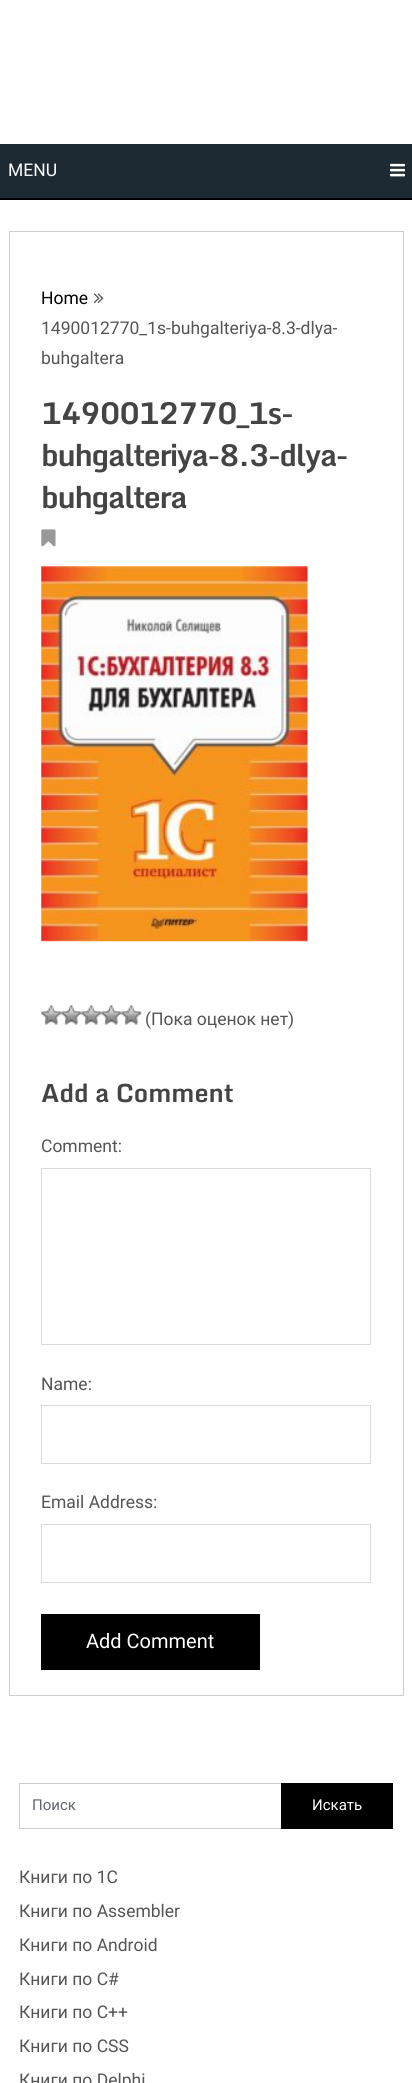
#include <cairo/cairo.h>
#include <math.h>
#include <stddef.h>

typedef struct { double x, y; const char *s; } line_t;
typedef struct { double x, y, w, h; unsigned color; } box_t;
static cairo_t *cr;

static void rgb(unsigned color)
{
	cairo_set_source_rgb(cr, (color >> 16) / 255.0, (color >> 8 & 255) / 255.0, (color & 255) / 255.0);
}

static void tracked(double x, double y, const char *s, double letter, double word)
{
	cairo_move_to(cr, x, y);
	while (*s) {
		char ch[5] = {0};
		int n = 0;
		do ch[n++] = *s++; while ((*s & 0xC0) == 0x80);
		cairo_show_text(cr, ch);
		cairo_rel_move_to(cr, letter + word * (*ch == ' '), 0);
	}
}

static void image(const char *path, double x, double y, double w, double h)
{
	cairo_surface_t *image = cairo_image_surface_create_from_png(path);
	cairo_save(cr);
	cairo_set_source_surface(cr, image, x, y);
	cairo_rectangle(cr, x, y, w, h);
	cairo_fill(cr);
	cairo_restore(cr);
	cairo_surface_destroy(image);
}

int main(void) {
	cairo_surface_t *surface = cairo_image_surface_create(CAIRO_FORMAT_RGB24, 412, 2083);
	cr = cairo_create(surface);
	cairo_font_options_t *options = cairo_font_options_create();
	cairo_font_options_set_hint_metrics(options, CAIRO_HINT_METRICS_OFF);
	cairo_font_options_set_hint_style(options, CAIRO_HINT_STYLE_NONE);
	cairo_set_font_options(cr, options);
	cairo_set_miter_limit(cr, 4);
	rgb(0xffffff);
	cairo_paint(cr);
	rgb(0x000000);
	cairo_rectangle(cr, 0, 198, 412, 2);
	cairo_fill(cr);
	rgb(0x1d2933);
	cairo_rectangle(cr, 0, 144, 412, 54);
	cairo_fill(cr);
	image("img/1.png", 390, 163, 15, 14);
	cairo_rectangle(cr, 9.5, 231.5, 394, 1464);
	rgb(0xcdcdcd);
	cairo_set_line_width(cr, 1);
	cairo_stroke(cr);
	image("img/2.png", 93, 293, 11, 11);
	image("img/3.png", 41, 529, 15, 18);
	image("img/4.png", 41, 566, 267, 376);
	image("img/5.png", 41, 1005, 21, 20);
	image("img/6.png", 61, 1005, 21, 20);
	image("img/6.png", 81, 1005, 21, 20);
	image("img/6.png", 101, 1005, 21, 20);
	image("img/6.png", 121, 1005, 21, 20);
	cairo_rectangle(cr, 41.5, 1168.5, 329, 176);
	rgb(0xdadada);
	cairo_stroke(cr);
	cairo_rectangle(cr, 41.5, 1405.5, 329, 58);
	cairo_stroke(cr);
	cairo_rectangle(cr, 41.5, 1524.5, 329, 58);
	cairo_stroke(cr);
	{
		static const box_t items[] = {
			{41, 1614, 219, 56, 0x000000},
			{19, 1783, 262, 1, 0xcccccc},
			{19, 1828, 262, 1, 0xcccccc},
			{19, 1783, 1, 46, 0xcccccc},
			{281, 1783, 112, 46, 0x000000},
		};
		for (size_t i = 0; i < sizeof items / sizeof *items; i++) {
			rgb(items[i].color);
			cairo_rectangle(cr, items[i].x, items[i].y, items[i].w, items[i].h);
			cairo_fill(cr);
		}
	}
	cairo_select_font_face(cr, "Roboto", CAIRO_FONT_SLANT_NORMAL, CAIRO_FONT_WEIGHT_NORMAL);
	cairo_set_font_size(cr, 17.5);
	rgb(0xffffff);
	cairo_move_to(cr, 8, 176);
	cairo_show_text(cr, "MENU");
	rgb(0x000000);
	cairo_move_to(cr, 41, 304);
	cairo_show_text(cr, "Home");
	rgb(0x555555);
	cairo_move_to(cr, 41, 334);
	cairo_show_text(cr, "1490012770_1s-buhgalteriya-8.3-dlya-");
	cairo_move_to(cr, 41, 364);
	cairo_show_text(cr, "buhgaltera");
	cairo_select_font_face(cr, "Monda", CAIRO_FONT_SLANT_NORMAL, CAIRO_FONT_WEIGHT_BOLD);
	cairo_set_font_size(cr, 30);
	rgb(0x444444);
	{
		static const line_t items[] = {
			{41, 424, "1490012770_1s-"},
			{41, 466, "buhgalteriya-8.3-dlya-"},
			{41, 508, "buhgaltera"},
		};
		for (size_t i = 0; i < sizeof items / sizeof *items; i++) {
			tracked(items[i].x, items[i].y, items[i].s, -1.25, 0);
		}
	}
	cairo_select_font_face(cr, "Roboto", CAIRO_FONT_SLANT_NORMAL, CAIRO_FONT_WEIGHT_NORMAL);
	cairo_set_font_size(cr, 17.5);
	rgb(0x555555);
	cairo_move_to(cr, 145, 1025);
	cairo_show_text(cr, "(Пока оценок нет)");
	cairo_select_font_face(cr, "Monda", CAIRO_FONT_SLANT_NORMAL, CAIRO_FONT_WEIGHT_BOLD);
	cairo_set_font_size(cr, 25);
	rgb(0x444444);
	cairo_move_to(cr, 41, 1102);
	cairo_show_text(cr, "Add a Comment");
	cairo_select_font_face(cr, "Roboto", CAIRO_FONT_SLANT_NORMAL, CAIRO_FONT_WEIGHT_NORMAL);
	cairo_set_font_size(cr, 17.5);
	rgb(0x555555);
	{
		static const line_t items[] = {
			{41, 1152, "Comment:"},
			{41, 1390, "Name:"},
			{41, 1508, "Email Address:"},
		};
		for (size_t i = 0; i < sizeof items / sizeof *items; i++) {
			cairo_move_to(cr, items[i].x, items[i].y);
			cairo_show_text(cr, items[i].s);
		}
	}
	cairo_set_font_size(cr, 20);
	rgb(0xffffff);
	cairo_move_to(cr, 86, 1648);
	cairo_show_text(cr, "Add Comment");
	cairo_set_font_size(cr, 15);
	rgb(0x5e656d);
	cairo_move_to(cr, 32, 1810);
	cairo_show_text(cr, "Поиск");
	rgb(0xffffff);
	cairo_move_to(cr, 312, 1810);
	cairo_show_text(cr, "Искать");
	cairo_set_font_size(cr, 17.5);
	rgb(0x555555);
	{
		static const line_t items[] = {
			{19, 1883, "Книги по 1С"},
			{19, 1917, "Книги по Assembler"},
			{19, 1951, "Книги по Android"},
			{19, 1985, "Книги по C#"},
			{19, 2018, "Книги по C++"},
			{19, 2052, "Книги по CSS"},
			{19, 2086, "Книги по Delphi"},
		};
		for (size_t i = 0; i < sizeof items / sizeof *items; i++) {
			cairo_move_to(cr, items[i].x, items[i].y);
			cairo_show_text(cr, items[i].s);
		}
	}
	cairo_surface_write_to_png(surface, "page.png");
	cairo_font_options_destroy(options);
	cairo_destroy(cr);
	cairo_surface_destroy(surface);
	return 0;
}
